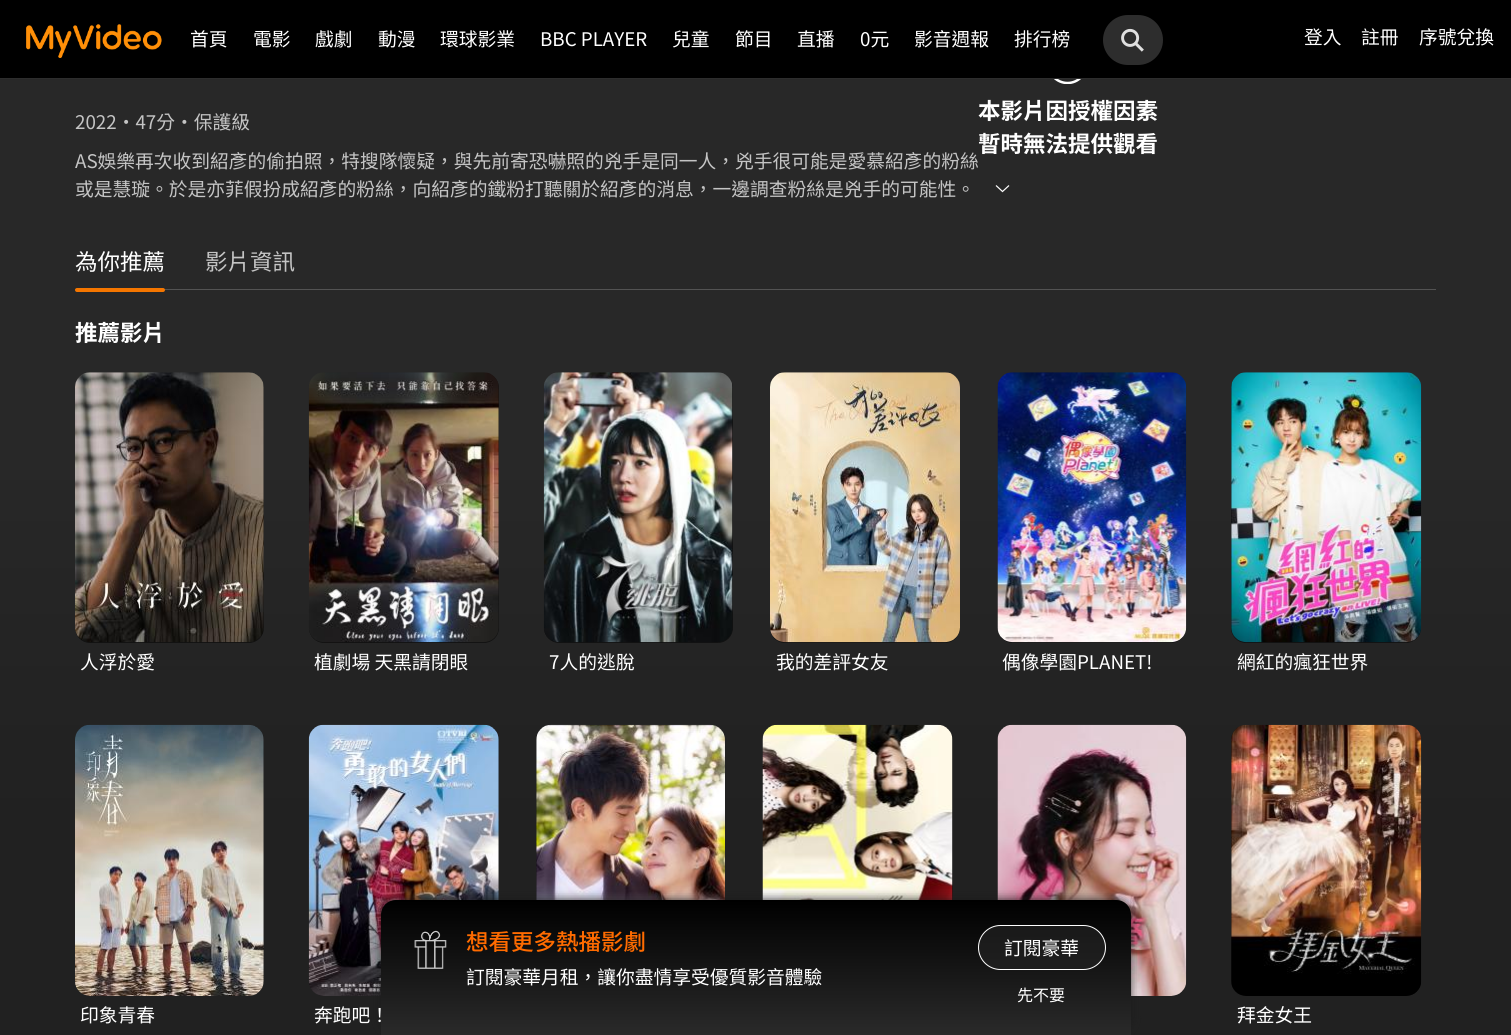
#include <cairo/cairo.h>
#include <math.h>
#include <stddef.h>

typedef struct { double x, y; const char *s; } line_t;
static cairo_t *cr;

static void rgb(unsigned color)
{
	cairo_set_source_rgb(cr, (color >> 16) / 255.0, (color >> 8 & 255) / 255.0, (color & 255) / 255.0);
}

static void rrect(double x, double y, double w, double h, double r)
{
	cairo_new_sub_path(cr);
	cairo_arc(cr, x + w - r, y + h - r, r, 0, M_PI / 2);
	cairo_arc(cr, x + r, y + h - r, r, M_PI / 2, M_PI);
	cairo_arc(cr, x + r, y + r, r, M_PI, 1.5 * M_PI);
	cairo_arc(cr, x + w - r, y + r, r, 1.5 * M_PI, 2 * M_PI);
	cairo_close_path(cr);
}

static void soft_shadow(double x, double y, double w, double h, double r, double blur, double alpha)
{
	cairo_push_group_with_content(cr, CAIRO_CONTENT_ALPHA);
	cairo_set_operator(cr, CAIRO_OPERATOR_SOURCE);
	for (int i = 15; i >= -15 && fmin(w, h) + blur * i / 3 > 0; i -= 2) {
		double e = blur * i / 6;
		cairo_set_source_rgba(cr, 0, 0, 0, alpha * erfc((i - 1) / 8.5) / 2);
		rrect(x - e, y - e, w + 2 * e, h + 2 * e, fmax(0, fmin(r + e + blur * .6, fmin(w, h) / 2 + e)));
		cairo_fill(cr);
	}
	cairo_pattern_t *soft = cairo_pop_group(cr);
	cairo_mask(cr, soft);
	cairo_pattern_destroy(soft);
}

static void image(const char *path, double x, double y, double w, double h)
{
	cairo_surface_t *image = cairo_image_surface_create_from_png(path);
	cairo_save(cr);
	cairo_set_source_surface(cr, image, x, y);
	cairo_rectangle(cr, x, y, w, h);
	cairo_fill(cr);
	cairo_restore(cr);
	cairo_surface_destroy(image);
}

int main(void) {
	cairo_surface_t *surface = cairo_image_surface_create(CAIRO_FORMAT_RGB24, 1511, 1035);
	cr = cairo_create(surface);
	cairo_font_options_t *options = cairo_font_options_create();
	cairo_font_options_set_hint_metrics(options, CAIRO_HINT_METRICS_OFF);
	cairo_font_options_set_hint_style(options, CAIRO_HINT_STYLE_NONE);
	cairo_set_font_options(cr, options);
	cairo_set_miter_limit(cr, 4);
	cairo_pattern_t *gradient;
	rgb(0xffffff);
	cairo_paint(cr);
	gradient = cairo_pattern_create_linear(756, -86, 756, 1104);
	cairo_pattern_add_color_stop_rgba(gradient, 0.46, 0.157, 0.157, 0.157, 1);
	cairo_pattern_add_color_stop_rgba(gradient, 0.49, 0.153, 0.153, 0.153, 1);
	cairo_pattern_add_color_stop_rgba(gradient, 0.61, 0.141, 0.141, 0.141, 1);
	cairo_pattern_add_color_stop_rgba(gradient, 0.71, 0.133, 0.133, 0.133, 1);
	cairo_pattern_add_color_stop_rgba(gradient, 0.79, 0.129, 0.129, 0.129, 1);
	cairo_set_source(cr, gradient);
	cairo_pattern_destroy(gradient);
	cairo_rectangle(cr, 0, 79, 1511, 956);
	cairo_fill(cr);
	cairo_save(cr);
	cairo_rectangle(cr, 1048, 44, 40, 40);
	cairo_clip(cr);
	cairo_arc(cr, 1067.5, 64, 19, 0, 2 * M_PI);
	rgb(0xffffff);
	cairo_set_line_width(cr, 2.5);
	cairo_stroke(cr);
	cairo_restore(cr);
	rgb(0x000000);
	cairo_rectangle(cr, 0, 0, 1511, 78);
	cairo_fill(cr);
	rgb(0x2d2d2d);
	cairo_rectangle(cr, 0, 78, 1511, 1);
	cairo_fill(cr);
	image("img/1.png", 26, 24, 136, 34);
	rrect(1103, 15, 60, 50, 25);
	cairo_fill(cr);
	image("img/2.png", 1121, 28, 23, 24);
	cairo_new_path(cr);
	cairo_move_to(cr, 1009, 185.5);
	cairo_line_to(cr, 1002.5, 191.5);
	cairo_line_to(cr, 996, 185.5);
	rgb(0xffffff);
	cairo_set_line_width(cr, 1.2);
	cairo_stroke(cr);
	rgb(0x535353);
	cairo_rectangle(cr, 75, 289, 1361, 1);
	cairo_fill(cr);
	rgb(0xf57600);
	rrect(75, 288, 90, 4, 2);
	cairo_fill(cr);
	rgb(0x121212);
	rrect(75, 373, 189, 270, 15);
	cairo_fill(cr);
	image("img/3.png", 75, 372, 189, 271);
	rrect(309, 373, 190, 270, 15);
	cairo_fill(cr);
	image("img/4.png", 308, 372, 191, 271);
	rrect(544, 373, 189, 270, 15);
	cairo_fill(cr);
	image("img/5.png", 543, 372, 190, 271);
	rrect(770, 373, 190, 270, 15);
	cairo_fill(cr);
	image("img/6.png", 770, 372, 190, 271);
	rrect(998, 373, 188, 270, 15);
	cairo_fill(cr);
	image("img/7.png", 997, 372, 190, 271);
	rrect(1231, 373, 190, 270, 15);
	cairo_fill(cr);
	image("img/8.png", 1231, 372, 191, 271);
	rrect(536, 725, 189, 271, 15);
	cairo_fill(cr);
	image("img/9.png", 536, 724, 189, 176);
	rrect(763, 725, 190, 271, 15);
	cairo_fill(cr);
	image("img/10.png", 762, 724, 191, 176);
	rrect(998, 725, 188, 271, 15);
	cairo_fill(cr);
	image("img/11.png", 997, 724, 190, 272);
	rrect(75, 725, 189, 271, 15);
	cairo_fill(cr);
	image("img/12.png", 75, 724, 189, 272);
	rrect(309, 725, 190, 271, 15);
	cairo_fill(cr);
	image("img/13.png", 308, 724, 191, 272);
	rrect(1231, 725, 190, 271, 15);
	cairo_fill(cr);
	image("img/14.png", 1231, 724, 191, 272);
	rgb(0x1b1b1b);
	soft_shadow(381, 899, 750, 135, 15, 5, 0.8);
	cairo_select_font_face(cr, "Noto Sans TC", CAIRO_FONT_SLANT_NORMAL, CAIRO_FONT_WEIGHT_NORMAL);
	cairo_set_font_size(cr, 18.75);
	rgb(0xffffff);
	{
		static const line_t items[] = {
			{190, 46, "首頁"},
			{253, 46, "電影"},
			{315, 46, "戲劇"},
			{378, 46, "動漫"},
			{440, 46, "環球影業"},
			{540, 46, "BBC PLAYER"},
			{672, 46, "兒童"},
			{735, 46, "節目"},
			{797, 46, "直播"},
			{860, 46, "0元"},
			{914, 46, "影音週報"},
			{1014, 46, "排行榜"},
			{1304, 44, "登入"},
			{1361, 44, "註冊"},
			{1419, 44, "序號兌換"},
		};
		for (size_t i = 0; i < sizeof items / sizeof *items; i++) {
			cairo_move_to(cr, items[i].x, items[i].y);
			cairo_show_text(cr, items[i].s);
		}
	}
	rgb(0xc4c4c4);
	{
		static const line_t items[] = {
			{75, 129, "2022・47分・保護級"},
			{75, 168, "AS娛樂再次收到紹彥的偷拍照，特搜隊懷疑，與先前寄恐嚇照的兇手是同一人，兇手很可能是愛慕紹彥的粉絲"},
			{75, 196, "或是慧璇。於是亦菲假扮成紹彥的粉絲，向紹彥的鐵粉打聽關於紹彥的消息，一邊調查粉絲是兇手的可能性。"},
		};
		for (size_t i = 0; i < sizeof items / sizeof *items; i++) {
			cairo_move_to(cr, items[i].x, items[i].y);
			cairo_show_text(cr, items[i].s);
		}
	}
	cairo_select_font_face(cr, "Noto Sans TC", CAIRO_FONT_SLANT_NORMAL, CAIRO_FONT_WEIGHT_BOLD);
	cairo_set_font_size(cr, 22.5);
	rgb(0xffffff);
	cairo_move_to(cr, 978, 119);
	cairo_show_text(cr, "本影片因授權因素");
	cairo_move_to(cr, 978, 152);
	cairo_show_text(cr, "暫時無法提供觀看");
	cairo_select_font_face(cr, "Noto Sans TC", CAIRO_FONT_SLANT_NORMAL, CAIRO_FONT_WEIGHT_NORMAL);
	cairo_move_to(cr, 75, 270);
	cairo_show_text(cr, "為你推薦");
	rgb(0xc4c4c4);
	cairo_move_to(cr, 205, 270);
	cairo_show_text(cr, "影片資訊");
	cairo_select_font_face(cr, "Noto Sans TC", CAIRO_FONT_SLANT_NORMAL, CAIRO_FONT_WEIGHT_BOLD);
	rgb(0xffffff);
	cairo_move_to(cr, 75, 341);
	cairo_show_text(cr, "推薦影片");
	cairo_select_font_face(cr, "Noto Sans TC", CAIRO_FONT_SLANT_NORMAL, CAIRO_FONT_WEIGHT_NORMAL);
	cairo_set_font_size(cr, 18.75);
	{
		static const line_t items[] = {
			{80, 669, "人浮於愛"},
			{314, 669, "植劇場 天黑請閉眼"},
			{549, 669, "7人的逃脫"},
			{776, 669, "我的差評女友"},
			{1002, 669, "偶像學園PLANET!"},
			{1237, 669, "網紅的瘋狂世界"},
			{80, 1022, "印象青春"},
			{314, 1022, "奔跑吧！"},
			{1237, 1022, "拜金女王"},
		};
		for (size_t i = 0; i < sizeof items / sizeof *items; i++) {
			cairo_move_to(cr, items[i].x, items[i].y);
			cairo_show_text(cr, items[i].s);
		}
	}
	gradient = cairo_pattern_create_linear(756, 900, 756, 1035);
	cairo_pattern_add_color_stop_rgba(gradient, 0, 0, 0, 0, 1);
	cairo_pattern_add_color_stop_rgba(gradient, 1, 0.165, 0.165, 0.165, 1);
	cairo_set_source(cr, gradient);
	cairo_pattern_destroy(gradient);
	cairo_new_path(cr);
	cairo_move_to(cr, 396, 900);
	cairo_line_to(cr, 1116, 900);
	cairo_curve_to(cr, 1124.5, 900, 1131, 906.5, 1131, 915);
	cairo_line_to(cr, 1131, 1035);
	cairo_line_to(cr, 381, 1035);
	cairo_line_to(cr, 381, 915);
	cairo_curve_to(cr, 381, 906.5, 387.5, 900, 396, 900);
	cairo_close_path(cr);
	cairo_fill(cr);
	image("img/15.png", 414, 930, 33, 39);
	cairo_select_font_face(cr, "Noto Sans TC Medium", CAIRO_FONT_SLANT_NORMAL, CAIRO_FONT_WEIGHT_NORMAL);
	cairo_set_font_size(cr, 22.5);
	rgb(0xff6b00);
	cairo_move_to(cr, 466, 950);
	cairo_show_text(cr, "想看更多熱播影劇");
	cairo_select_font_face(cr, "Noto Sans TC", CAIRO_FONT_SLANT_NORMAL, CAIRO_FONT_WEIGHT_NORMAL);
	cairo_set_font_size(cr, 18.75);
	rgb(0xffffff);
	cairo_move_to(cr, 466, 984);
	cairo_show_text(cr, "訂閱豪華月租，讓你盡情享受優質影音體驗");
	cairo_set_source_rgba(cr, 0.149, 0.149, 0.149, 0.6);
	rrect(978.5, 925.5, 127, 44, 22);
	cairo_fill_preserve(cr);
	rgb(0xffffff);
	cairo_set_line_width(cr, 1);
	cairo_stroke(cr);
	cairo_move_to(cr, 1004, 955);
	cairo_show_text(cr, "訂閱豪華");
	cairo_set_font_size(cr, 16);
	cairo_move_to(cr, 1017, 1001);
	cairo_show_text(cr, "先不要");
	cairo_surface_write_to_png(surface, "page.png");
	cairo_font_options_destroy(options);
	cairo_destroy(cr);
	cairo_surface_destroy(surface);
	return 0;
}
